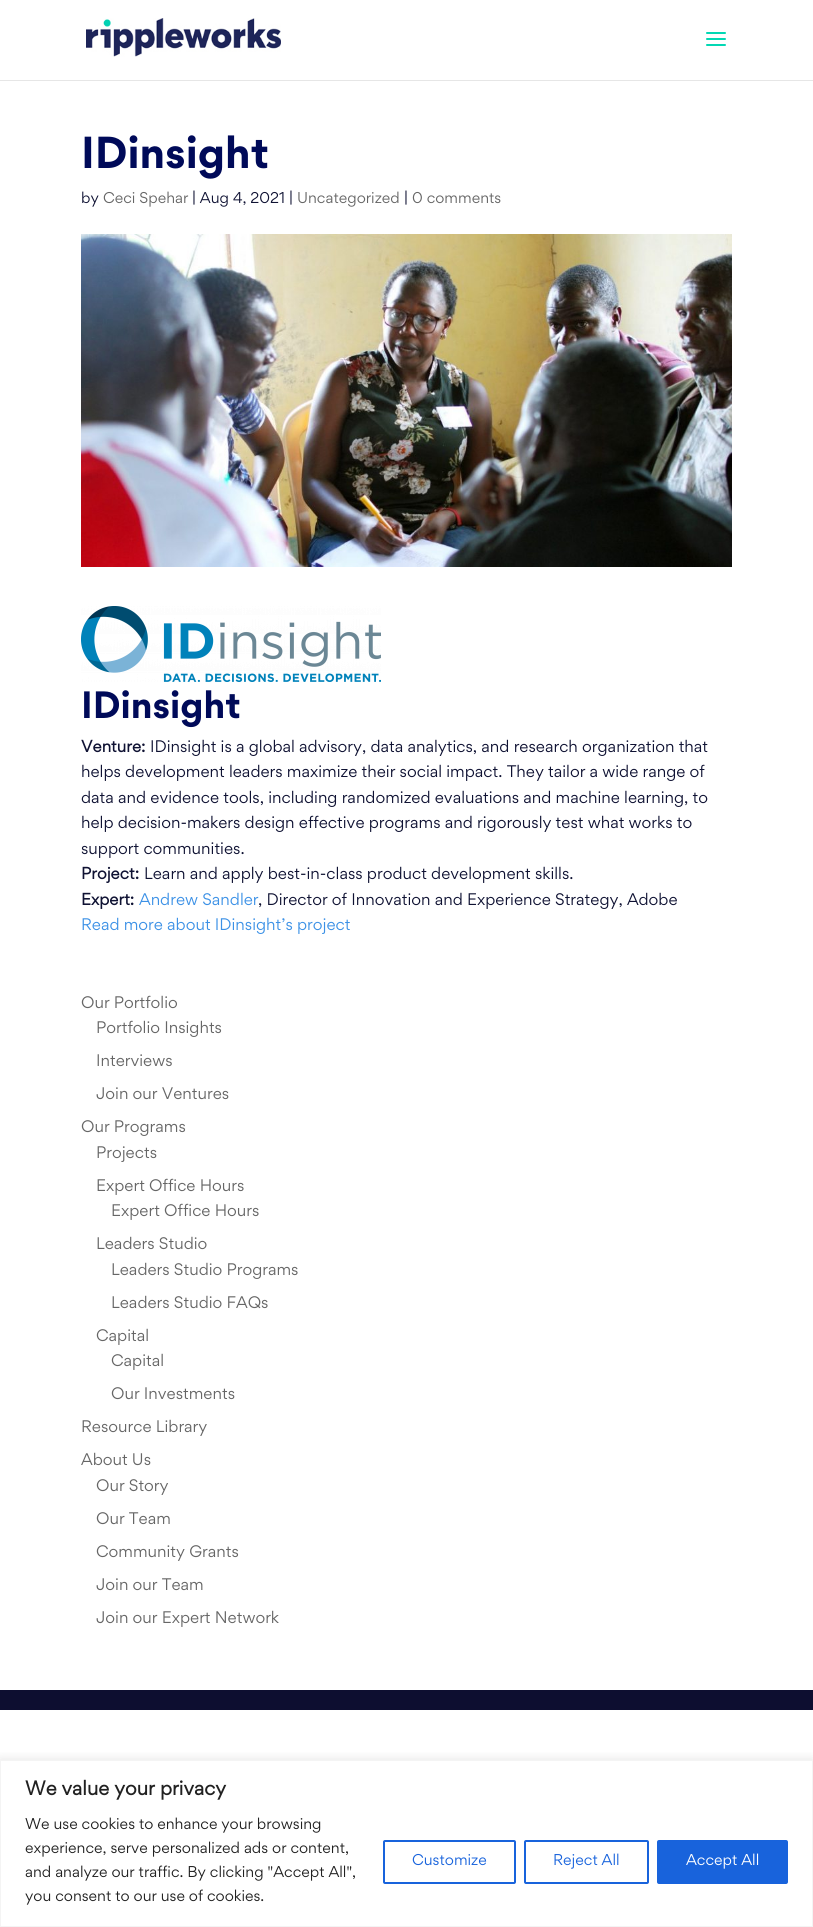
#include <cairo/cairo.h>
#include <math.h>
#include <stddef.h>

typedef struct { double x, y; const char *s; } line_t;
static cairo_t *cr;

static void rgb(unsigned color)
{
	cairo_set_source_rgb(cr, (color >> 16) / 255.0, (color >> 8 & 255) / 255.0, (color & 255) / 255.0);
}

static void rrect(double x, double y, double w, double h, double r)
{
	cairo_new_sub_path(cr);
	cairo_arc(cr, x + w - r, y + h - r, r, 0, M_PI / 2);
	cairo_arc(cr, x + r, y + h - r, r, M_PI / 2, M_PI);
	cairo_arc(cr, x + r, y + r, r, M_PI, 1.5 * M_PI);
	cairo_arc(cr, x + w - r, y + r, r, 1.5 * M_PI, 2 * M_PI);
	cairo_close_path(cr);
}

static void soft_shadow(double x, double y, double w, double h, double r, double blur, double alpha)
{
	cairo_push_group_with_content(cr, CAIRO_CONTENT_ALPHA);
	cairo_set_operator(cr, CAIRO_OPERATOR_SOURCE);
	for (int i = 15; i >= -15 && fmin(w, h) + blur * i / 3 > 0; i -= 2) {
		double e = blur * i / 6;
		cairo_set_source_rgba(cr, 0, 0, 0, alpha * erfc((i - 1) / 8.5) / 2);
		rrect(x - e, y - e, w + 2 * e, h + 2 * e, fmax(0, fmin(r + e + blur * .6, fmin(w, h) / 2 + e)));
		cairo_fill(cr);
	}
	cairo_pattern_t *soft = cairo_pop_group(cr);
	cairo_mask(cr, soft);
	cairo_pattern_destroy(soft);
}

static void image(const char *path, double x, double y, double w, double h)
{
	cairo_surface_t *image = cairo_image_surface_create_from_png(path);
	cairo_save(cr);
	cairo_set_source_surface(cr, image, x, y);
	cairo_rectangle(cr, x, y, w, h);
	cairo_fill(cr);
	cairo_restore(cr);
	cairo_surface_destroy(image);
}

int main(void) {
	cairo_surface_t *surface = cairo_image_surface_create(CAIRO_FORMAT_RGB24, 813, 1927);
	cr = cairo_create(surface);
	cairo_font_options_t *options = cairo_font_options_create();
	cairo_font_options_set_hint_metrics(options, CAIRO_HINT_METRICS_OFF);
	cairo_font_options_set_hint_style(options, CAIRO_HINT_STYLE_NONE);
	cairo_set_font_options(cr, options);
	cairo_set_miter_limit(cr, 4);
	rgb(0xffffff);
	cairo_paint(cr);
	rgb(0xe6e6e6);
	cairo_rectangle(cr, 0, 80, 813, 1);
	cairo_fill(cr);
	image("img/1.png", 86, 18, 195, 39);
	image("img/2.png", 706, 32, 20, 14);
	image("img/3.png", 81, 234, 651, 333);
	image("img/4.png", 81, 606, 300, 76);
	rgb(0x0d0e30);
	cairo_rectangle(cr, 0, 1690, 813, 20);
	cairo_fill(cr);
	cairo_save(cr);
	cairo_rectangle(cr, 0, 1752, 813, 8);
	cairo_clip(cr);
	rgb(0xacabab);
	soft_shadow(0, 1759, 813, 167, 0, 5, 0.3);
	cairo_restore(cr);
	cairo_rectangle(cr, 0.5, 1760.5, 812, 166);
	rgb(0xf4f4f4);
	cairo_set_line_width(cr, 1);
	cairo_stroke(cr);
	rrect(384, 1841, 131, 42, 1);
	rgb(0x1863dc);
	cairo_set_line_width(cr, 2);
	cairo_stroke(cr);
	rrect(525, 1841, 123, 42, 1);
	cairo_stroke(cr);
	rrect(658, 1841, 129, 42, 1);
	cairo_fill_preserve(cr);
	cairo_stroke(cr);
	cairo_select_font_face(cr, "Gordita", CAIRO_FONT_SLANT_NORMAL, CAIRO_FONT_WEIGHT_BOLD);
	cairo_set_font_size(cr, 40);
	rgb(0x000a59);
	cairo_move_to(cr, 81, 168);
	cairo_show_text(cr, "IDinsight");
	cairo_select_font_face(cr, "Gordita", CAIRO_FONT_SLANT_NORMAL, CAIRO_FONT_WEIGHT_NORMAL);
	cairo_set_font_size(cr, 14);
	rgb(0x0f1233);
	cairo_move_to(cr, 81, 203);
	cairo_show_text(cr, "by");
	rgb(0x666666);
	cairo_move_to(cr, 103, 203);
	cairo_show_text(cr, "Ceci Spehar");
	rgb(0x0f1233);
	cairo_move_to(cr, 192, 203);
	cairo_show_text(cr, "| Aug 4, 2021 |");
	rgb(0x666666);
	cairo_move_to(cr, 297, 203);
	cairo_show_text(cr, "Uncategorized");
	rgb(0x0f1233);
	cairo_move_to(cr, 404, 203);
	cairo_show_text(cr, "|");
	rgb(0x666666);
	cairo_move_to(cr, 412, 203);
	cairo_show_text(cr, "0 comments");
	cairo_select_font_face(cr, "Gordita", CAIRO_FONT_SLANT_NORMAL, CAIRO_FONT_WEIGHT_BOLD);
	cairo_set_font_size(cr, 34);
	rgb(0x000a59);
	cairo_move_to(cr, 81, 718);
	cairo_show_text(cr, "IDinsight");
	cairo_select_font_face(cr, "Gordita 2", CAIRO_FONT_SLANT_NORMAL, CAIRO_FONT_WEIGHT_BOLD);
	cairo_set_font_size(cr, 15);
	rgb(0x0f1233);
	cairo_move_to(cr, 81, 752);
	cairo_show_text(cr, "Venture:");
	cairo_select_font_face(cr, "Gordita", CAIRO_FONT_SLANT_NORMAL, CAIRO_FONT_WEIGHT_NORMAL);
	{
		static const line_t items[] = {
			{150, 752, "IDinsight is a global advisory, data analytics, and research organization that"},
			{81, 777, "helps development leaders maximize their social impact. They tailor a wide range of"},
			{81, 803, "data and evidence tools, including randomized evaluations and machine learning, to"},
			{81, 828, "help decision-makers design effective programs and rigorously test what works to"},
			{81, 854, "support communities."},
		};
		for (size_t i = 0; i < sizeof items / sizeof *items; i++) {
			cairo_move_to(cr, items[i].x, items[i].y);
			cairo_show_text(cr, items[i].s);
		}
	}
	cairo_select_font_face(cr, "Gordita 2", CAIRO_FONT_SLANT_NORMAL, CAIRO_FONT_WEIGHT_BOLD);
	cairo_move_to(cr, 81, 879);
	cairo_show_text(cr, "Project:");
	cairo_select_font_face(cr, "Gordita", CAIRO_FONT_SLANT_NORMAL, CAIRO_FONT_WEIGHT_NORMAL);
	cairo_move_to(cr, 144, 879);
	cairo_show_text(cr, "Learn and apply best-in-class product development skills.");
	cairo_select_font_face(cr, "Gordita 2", CAIRO_FONT_SLANT_NORMAL, CAIRO_FONT_WEIGHT_BOLD);
	cairo_move_to(cr, 81, 905);
	cairo_show_text(cr, "Expert:");
	cairo_select_font_face(cr, "Gordita", CAIRO_FONT_SLANT_NORMAL, CAIRO_FONT_WEIGHT_NORMAL);
	rgb(0x3c91e6);
	cairo_move_to(cr, 139, 905);
	cairo_show_text(cr, "Andrew Sandler");
	rgb(0x0f1233);
	cairo_move_to(cr, 258, 905);
	cairo_show_text(cr, ", Director of Innovation and Experience Strategy, Adobe");
	rgb(0x3c91e6);
	cairo_move_to(cr, 81, 930);
	cairo_show_text(cr, "Read more about IDinsight’s project");
	rgb(0x666666);
	{
		static const line_t items[] = {
			{81, 1008, "Our Portfolio"},
			{96, 1033, "Portfolio Insights"},
			{96, 1066, "Interviews"},
			{96, 1099, "Join our Ventures"},
			{81, 1132, "Our Programs"},
			{96, 1158, "Projects"},
			{96, 1191, "Expert Office Hours"},
			{111, 1216, "Expert Office Hours"},
			{96, 1249, "Leaders Studio"},
			{111, 1275, "Leaders Studio Programs"},
			{111, 1308, "Leaders Studio FAQs"},
			{96, 1341, "Capital"},
			{111, 1366, "Capital"},
			{111, 1399, "Our Investments"},
			{81, 1432, "Resource Library"},
			{81, 1465, "About Us"},
			{96, 1491, "Our Story"},
			{96, 1524, "Our Team"},
			{96, 1557, "Community Grants"},
			{96, 1590, "Join our Team"},
			{96, 1623, "Join our Expert Network"},
		};
		for (size_t i = 0; i < sizeof items / sizeof *items; i++) {
			cairo_move_to(cr, items[i].x, items[i].y);
			cairo_show_text(cr, items[i].s);
		}
	}
	cairo_select_font_face(cr, "Gordita 2", CAIRO_FONT_SLANT_NORMAL, CAIRO_FONT_WEIGHT_BOLD);
	cairo_set_font_size(cr, 18);
	rgb(0x212121);
	cairo_move_to(cr, 25, 1795);
	cairo_show_text(cr, "We value your privacy");
	cairo_select_font_face(cr, "Gordita", CAIRO_FONT_SLANT_NORMAL, CAIRO_FONT_WEIGHT_NORMAL);
	cairo_set_font_size(cr, 14);
	{
		static const line_t items[] = {
			{25, 1829, "We use cookies to enhance your browsing"},
			{25, 1853, "experience, serve personalized ads or content,"},
			{25, 1877, "and analyze our traffic. By clicking \"Accept All\","},
			{25, 1901, "you consent to our use of cookies."},
		};
		for (size_t i = 0; i < sizeof items / sizeof *items; i++) {
			cairo_move_to(cr, items[i].x, items[i].y);
			cairo_show_text(cr, items[i].s);
		}
	}
	rgb(0x1863dc);
	cairo_move_to(cr, 412, 1865);
	cairo_show_text(cr, "Customize");
	cairo_move_to(cr, 553, 1865);
	cairo_show_text(cr, "Reject All");
	rgb(0xffffff);
	cairo_move_to(cr, 686, 1865);
	cairo_show_text(cr, "Accept All");
	cairo_surface_write_to_png(surface, "page.png");
	cairo_font_options_destroy(options);
	cairo_destroy(cr);
	cairo_surface_destroy(surface);
	return 0;
}
